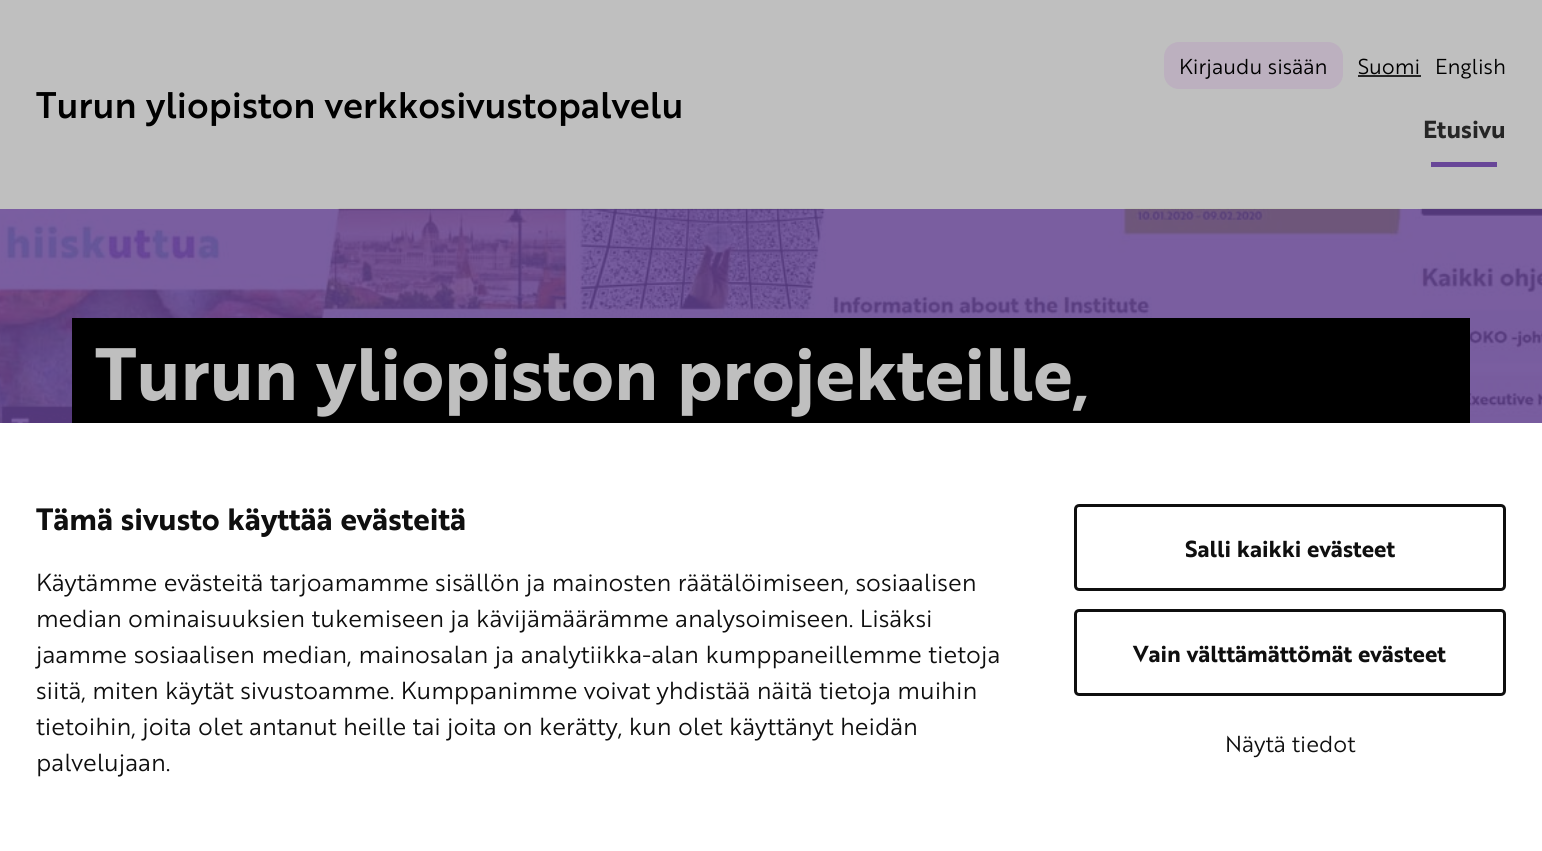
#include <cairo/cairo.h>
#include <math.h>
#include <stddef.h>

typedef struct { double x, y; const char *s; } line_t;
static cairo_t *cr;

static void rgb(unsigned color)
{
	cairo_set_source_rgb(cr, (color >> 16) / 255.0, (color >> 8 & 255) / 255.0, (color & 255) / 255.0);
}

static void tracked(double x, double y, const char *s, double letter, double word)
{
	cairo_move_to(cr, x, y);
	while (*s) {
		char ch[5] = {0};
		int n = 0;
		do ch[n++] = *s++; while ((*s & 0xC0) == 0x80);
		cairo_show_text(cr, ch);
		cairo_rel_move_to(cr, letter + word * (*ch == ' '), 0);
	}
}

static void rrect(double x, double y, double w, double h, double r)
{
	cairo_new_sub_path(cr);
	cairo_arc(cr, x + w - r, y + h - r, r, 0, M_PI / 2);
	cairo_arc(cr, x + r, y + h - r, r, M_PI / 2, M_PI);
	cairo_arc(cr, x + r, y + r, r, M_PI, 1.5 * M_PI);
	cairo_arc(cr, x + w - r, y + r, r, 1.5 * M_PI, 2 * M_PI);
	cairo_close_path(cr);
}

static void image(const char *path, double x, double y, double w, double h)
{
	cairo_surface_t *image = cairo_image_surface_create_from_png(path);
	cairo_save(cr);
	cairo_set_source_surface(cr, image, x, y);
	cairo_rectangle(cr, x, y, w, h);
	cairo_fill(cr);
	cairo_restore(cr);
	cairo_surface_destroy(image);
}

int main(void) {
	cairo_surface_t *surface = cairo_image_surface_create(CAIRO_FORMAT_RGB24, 1542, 851);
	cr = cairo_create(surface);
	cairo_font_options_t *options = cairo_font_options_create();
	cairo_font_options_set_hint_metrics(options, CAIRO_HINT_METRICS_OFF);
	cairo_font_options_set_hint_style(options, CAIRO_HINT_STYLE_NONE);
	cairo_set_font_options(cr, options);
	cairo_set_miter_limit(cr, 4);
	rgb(0xbfbfbf);
	cairo_paint(cr);
	rgb(0xbcb0bf);
	rrect(1164, 42, 179, 47, 15);
	cairo_fill(cr);
	rgb(0x262626);
	cairo_rectangle(cr, 1358, 75, 63, 2);
	cairo_fill(cr);
	rgb(0x684698);
	cairo_rectangle(cr, 1431, 162, 66, 5);
	cairo_fill(cr);
	image("img/1.png", 0, 208, 1542, 215);
	rgb(0x000000);
	cairo_rectangle(cr, 72, 318, 1398, 105);
	cairo_fill(cr);
	rgb(0xffffff);
	cairo_rectangle(cr, 0, 423, 1542, 428);
	cairo_fill(cr);
	rrect(1075.5, 505.5, 429, 84, 3.5);
	rgb(0x0f0f0f);
	cairo_set_line_width(cr, 3);
	cairo_stroke(cr);
	rrect(1075.5, 610.5, 429, 84, 3.5);
	cairo_stroke(cr);
	cairo_select_font_face(cr, "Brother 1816 Medium", CAIRO_FONT_SLANT_NORMAL, CAIRO_FONT_WEIGHT_NORMAL);
	cairo_set_font_size(cr, 36);
	rgb(0x000000);
	cairo_move_to(cr, 36, 118);
	cairo_show_text(cr, "Turun yliopiston verkkosivustopalvelu");
	cairo_select_font_face(cr, "Brother 1816", CAIRO_FONT_SLANT_NORMAL, CAIRO_FONT_WEIGHT_NORMAL);
	cairo_set_font_size(cr, 21);
	{
		static const line_t items[] = {
			{1179, 74, "Kirjaudu sisään"},
			{1358, 74, "Suomi"},
			{1435, 74, "English"},
		};
		for (size_t i = 0; i < sizeof items / sizeof *items; i++) {
			cairo_move_to(cr, items[i].x, items[i].y);
			cairo_show_text(cr, items[i].s);
		}
	}
	cairo_select_font_face(cr, "Brother 1816", CAIRO_FONT_SLANT_NORMAL, CAIRO_FONT_WEIGHT_BOLD);
	cairo_set_font_size(cr, 24);
	rgb(0x262626);
	cairo_move_to(cr, 1423, 138);
	cairo_show_text(cr, "Etusivu");
	cairo_set_font_size(cr, 72);
	rgb(0xbfbfbf);
	cairo_move_to(cr, 95, 400);
	cairo_show_text(cr, "Turun yliopiston projekteille,");
	cairo_set_font_size(cr, 30);
	rgb(0x0f0f0f);
	cairo_move_to(cr, 36, 530);
	cairo_show_text(cr, "Tämä sivusto käyttää evästeitä");
	cairo_select_font_face(cr, "Brother 1816", CAIRO_FONT_SLANT_NORMAL, CAIRO_FONT_WEIGHT_NORMAL);
	cairo_set_font_size(cr, 24);
	cairo_move_to(cr, 36, 591);
	cairo_show_text(cr, "Käytämme evästeitä tarjoamamme sisällön ja mainosten räätälöimiseen, sosiaalisen");
	cairo_move_to(cr, 36, 627);
	cairo_show_text(cr, "median ominaisuuksien tukemiseen ja kävijämäärämme analysoimiseen. Lisäksi");
	tracked(36, 663, "jaamme sosiaalisen median, mainosalan ja analytiikka-alan kumppaneillemme tietoja", 0, 0.25);
	{
		static const line_t items[] = {
			{36, 699, "siitä, miten käytät sivustoamme. Kumppanimme voivat yhdistää näitä tietoja muihin"},
			{36, 735, "tietoihin, joita olet antanut heille tai joita on kerätty, kun olet käyttänyt heidän"},
			{36, 771, "palvelujaan."},
		};
		for (size_t i = 0; i < sizeof items / sizeof *items; i++) {
			cairo_move_to(cr, items[i].x, items[i].y);
			cairo_show_text(cr, items[i].s);
		}
	}
	cairo_select_font_face(cr, "Brother 1816", CAIRO_FONT_SLANT_NORMAL, CAIRO_FONT_WEIGHT_BOLD);
	cairo_set_font_size(cr, 22.5);
	cairo_move_to(cr, 1185, 557);
	cairo_show_text(cr, "Salli kaikki evästeet");
	cairo_move_to(cr, 1133, 662);
	cairo_show_text(cr, "Vain välttämättömät evästeet");
	cairo_select_font_face(cr, "Brother 1816", CAIRO_FONT_SLANT_NORMAL, CAIRO_FONT_WEIGHT_NORMAL);
	cairo_move_to(cr, 1225, 752);
	cairo_show_text(cr, "Näytä tiedot");
	cairo_surface_write_to_png(surface, "page.png");
	cairo_font_options_destroy(options);
	cairo_destroy(cr);
	cairo_surface_destroy(surface);
	return 0;
}
